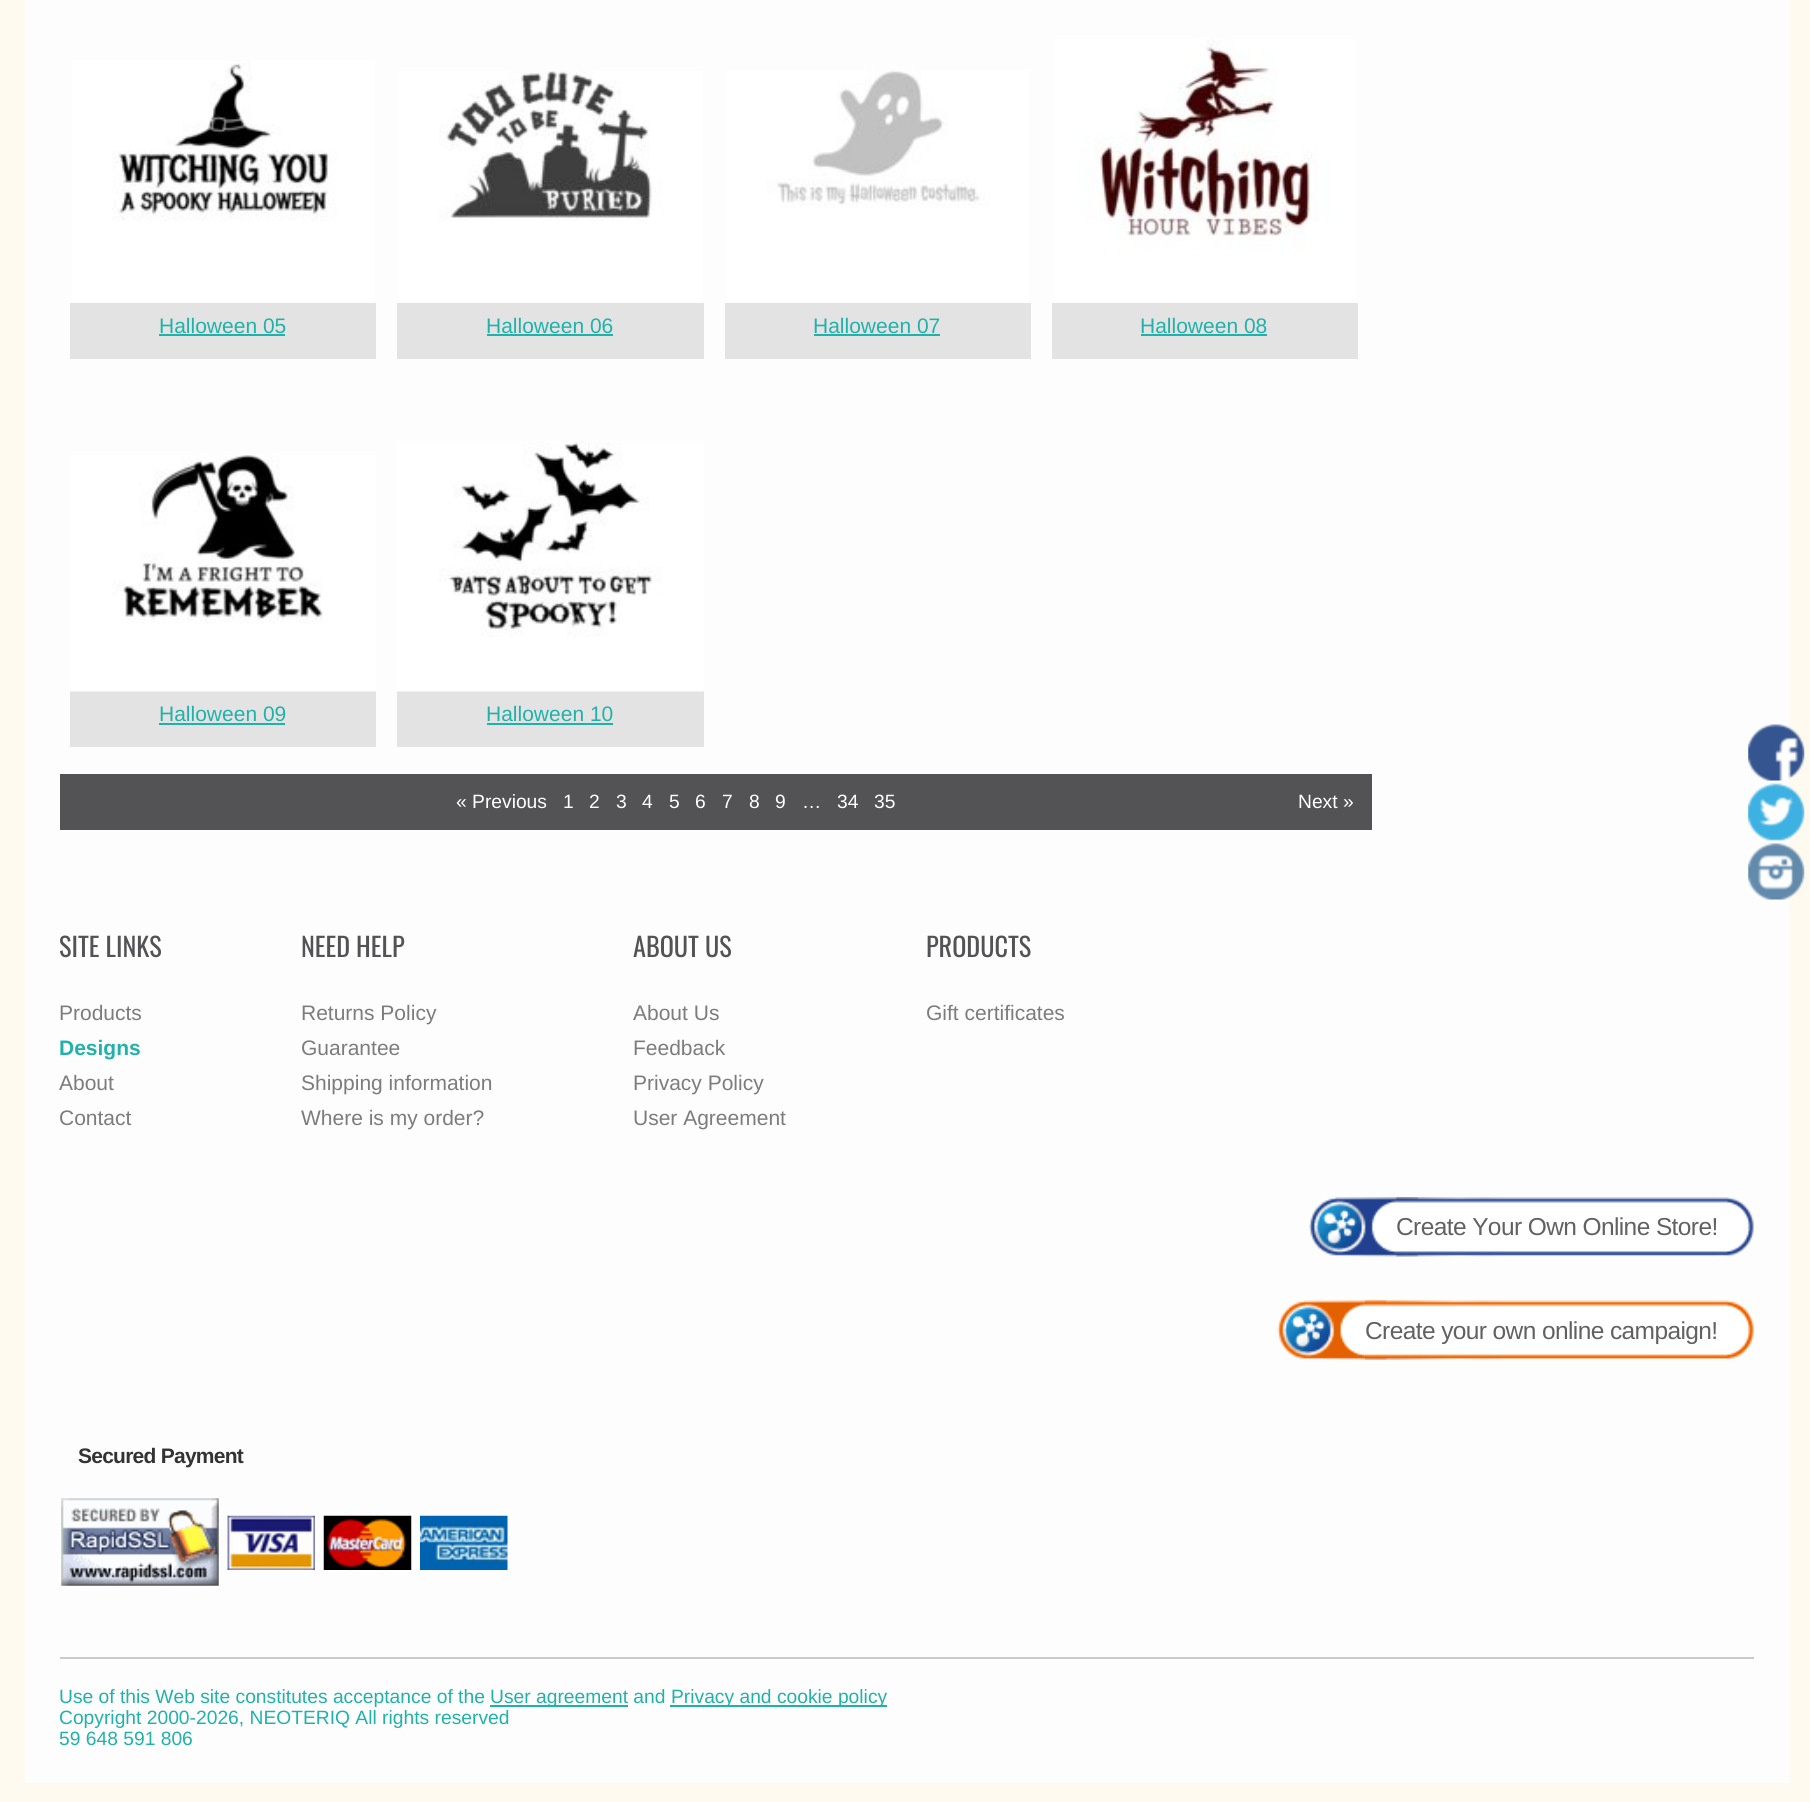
#include <cairo/cairo.h>
#include <math.h>
#include <stddef.h>

typedef struct { double x, y; const char *s; } line_t;
typedef struct { double x, y, w, h; unsigned color; } box_t;
static cairo_t *cr;

static void rgb(unsigned color)
{
	cairo_set_source_rgb(cr, (color >> 16) / 255.0, (color >> 8 & 255) / 255.0, (color & 255) / 255.0);
}

static void tracked(double x, double y, const char *s, double letter, double word)
{
	cairo_move_to(cr, x, y);
	while (*s) {
		char ch[5] = {0};
		int n = 0;
		do ch[n++] = *s++; while ((*s & 0xC0) == 0x80);
		cairo_show_text(cr, ch);
		cairo_rel_move_to(cr, letter + word * (*ch == ' '), 0);
	}
}

static void image(const char *path, double x, double y, double w, double h)
{
	cairo_surface_t *image = cairo_image_surface_create_from_png(path);
	cairo_save(cr);
	cairo_set_source_surface(cr, image, x, y);
	cairo_rectangle(cr, x, y, w, h);
	cairo_fill(cr);
	cairo_restore(cr);
	cairo_surface_destroy(image);
}

int main(void) {
	cairo_surface_t *surface = cairo_image_surface_create(CAIRO_FORMAT_RGB24, 1810, 1802);
	cr = cairo_create(surface);
	cairo_font_options_t *options = cairo_font_options_create();
	cairo_font_options_set_hint_metrics(options, CAIRO_HINT_METRICS_OFF);
	cairo_font_options_set_hint_style(options, CAIRO_HINT_STYLE_NONE);
	cairo_set_font_options(cr, options);
	cairo_set_miter_limit(cr, 4);
	rgb(0xfffaf0);
	cairo_paint(cr);
	rgb(0xfdfdfd);
	cairo_rectangle(cr, 25, 0, 1764, 1783);
	cairo_fill(cr);
	image("img/1.png", 72, 60, 302, 241);
	rgb(0xe3e3e3);
	cairo_rectangle(cr, 70, 303, 306, 56);
	cairo_fill(cr);
	rgb(0x20b2aa);
	cairo_rectangle(cr, 159, 334, 126, 2);
	cairo_fill(cr);
	image("img/2.png", 399, 71, 303, 230);
	rgb(0xe3e3e3);
	cairo_rectangle(cr, 397, 303, 307, 56);
	cairo_fill(cr);
	rgb(0x20b2aa);
	cairo_rectangle(cr, 487, 334, 126, 2);
	cairo_fill(cr);
	image("img/3.png", 727, 70, 302, 231);
	rgb(0xe3e3e3);
	cairo_rectangle(cr, 725, 303, 306, 56);
	cairo_fill(cr);
	rgb(0x20b2aa);
	cairo_rectangle(cr, 814, 334, 126, 2);
	cairo_fill(cr);
	image("img/4.png", 1054, 39, 302, 262);
	{
		static const box_t items[] = {
			{1052, 303, 306, 56, 0xe3e3e3},
			{1141, 334, 126, 2, 0x20b2aa},
			{70, 691, 306, 56, 0xe3e3e3},
		};
		for (size_t i = 0; i < sizeof items / sizeof *items; i++) {
			rgb(items[i].color);
			cairo_rectangle(cr, items[i].x, items[i].y, items[i].w, items[i].h);
			cairo_fill(cr);
		}
	}
	image("img/5.png", 70, 455, 306, 237);
	rgb(0x20b2aa);
	cairo_rectangle(cr, 159, 723, 126, 2);
	cairo_fill(cr);
	rgb(0xe3e3e3);
	cairo_rectangle(cr, 397, 691, 307, 56);
	cairo_fill(cr);
	image("img/6.png", 397, 441, 307, 251);
	rgb(0x20b2aa);
	cairo_rectangle(cr, 487, 723, 126, 2);
	cairo_fill(cr);
	rgb(0x535355);
	cairo_rectangle(cr, 60, 774, 1312, 56);
	cairo_fill(cr);
	image("img/7.png", 1309, 1197, 110, 60);
	image("img/8.png", 1396, 1197, 358, 60);
	image("img/9.png", 1277, 1300, 110, 60);
	image("img/10.png", 1365, 1300, 389, 60);
	image("img/11.png", 61, 1498, 158, 88);
	image("img/12.png", 227, 1515, 88, 55);
	image("img/13.png", 323, 1515, 89, 55);
	image("img/14.png", 420, 1515, 88, 55);
	{
		static const box_t items[] = {
			{60, 1657, 1694, 2, 0xcacaca},
			{490, 1705, 138, 2, 0x20b2aa},
			{670, 1705, 217, 2, 0x20b2aa},
		};
		for (size_t i = 0; i < sizeof items / sizeof *items; i++) {
			rgb(items[i].color);
			cairo_rectangle(cr, items[i].x, items[i].y, items[i].w, items[i].h);
			cairo_fill(cr);
		}
	}
	image("img/15.png", 1748, 724, 57, 57);
	image("img/16.png", 1748, 783, 57, 58);
	image("img/17.png", 1748, 843, 57, 57);
	cairo_select_font_face(cr, "Liberation Sans", CAIRO_FONT_SLANT_NORMAL, CAIRO_FONT_WEIGHT_NORMAL);
	cairo_set_font_size(cr, 21);
	{
		static const line_t items[] = {
			{159, 333, "Halloween 05"},
			{486, 333, "Halloween 06"},
			{813, 333, "Halloween 07"},
			{1140, 333, "Halloween 08"},
			{159, 721, "Halloween 09"},
			{486, 721, "Halloween 10"},
		};
		for (size_t i = 0; i < sizeof items / sizeof *items; i++) {
			cairo_move_to(cr, items[i].x, items[i].y);
			cairo_show_text(cr, items[i].s);
		}
	}
	cairo_set_font_size(cr, 19.25);
	rgb(0xffffff);
	{
		static const line_t items[] = {
			{456, 808, "« Previous"},
			{563, 808, "1"},
			{589, 808, "2"},
			{616, 808, "3"},
			{642, 808, "4"},
			{669, 808, "5"},
			{695, 808, "6"},
			{722, 808, "7"},
			{749, 808, "8"},
			{775, 808, "9"},
			{802, 808, "…"},
			{837, 808, "34"},
			{874, 808, "35"},
			{1298, 808, "Next »"},
		};
		for (size_t i = 0; i < sizeof items / sizeof *items; i++) {
			cairo_move_to(cr, items[i].x, items[i].y);
			cairo_show_text(cr, items[i].s);
		}
	}
	cairo_select_font_face(cr, "Oswald", CAIRO_FONT_SLANT_NORMAL, CAIRO_FONT_WEIGHT_NORMAL);
	cairo_set_font_size(cr, 26.25);
	rgb(0x535355);
	cairo_move_to(cr, 59, 957);
	cairo_show_text(cr, "SITE LINKS");
	cairo_select_font_face(cr, "Liberation Sans", CAIRO_FONT_SLANT_NORMAL, CAIRO_FONT_WEIGHT_NORMAL);
	cairo_set_font_size(cr, 21);
	rgb(0x7d7c7c);
	cairo_move_to(cr, 59, 1020);
	cairo_show_text(cr, "Products");
	cairo_select_font_face(cr, "Liberation Sans", CAIRO_FONT_SLANT_NORMAL, CAIRO_FONT_WEIGHT_BOLD);
	rgb(0x20b2aa);
	cairo_move_to(cr, 59, 1055);
	cairo_show_text(cr, "Designs");
	cairo_select_font_face(cr, "Liberation Sans", CAIRO_FONT_SLANT_NORMAL, CAIRO_FONT_WEIGHT_NORMAL);
	rgb(0x7d7c7c);
	cairo_move_to(cr, 59, 1090);
	cairo_show_text(cr, "About");
	cairo_move_to(cr, 59, 1125);
	cairo_show_text(cr, "Contact");
	cairo_select_font_face(cr, "Oswald", CAIRO_FONT_SLANT_NORMAL, CAIRO_FONT_WEIGHT_NORMAL);
	cairo_set_font_size(cr, 26.25);
	rgb(0x535355);
	cairo_move_to(cr, 301, 957);
	cairo_show_text(cr, "NEED HELP");
	cairo_select_font_face(cr, "Liberation Sans", CAIRO_FONT_SLANT_NORMAL, CAIRO_FONT_WEIGHT_NORMAL);
	cairo_set_font_size(cr, 21);
	rgb(0x7d7c7c);
	{
		static const line_t items[] = {
			{301, 1020, "Returns Policy"},
			{301, 1055, "Guarantee"},
			{301, 1090, "Shipping information"},
			{301, 1125, "Where is my order?"},
		};
		for (size_t i = 0; i < sizeof items / sizeof *items; i++) {
			cairo_move_to(cr, items[i].x, items[i].y);
			cairo_show_text(cr, items[i].s);
		}
	}
	cairo_select_font_face(cr, "Oswald", CAIRO_FONT_SLANT_NORMAL, CAIRO_FONT_WEIGHT_NORMAL);
	cairo_set_font_size(cr, 26.25);
	rgb(0x535355);
	cairo_move_to(cr, 633, 957);
	cairo_show_text(cr, "ABOUT US");
	cairo_select_font_face(cr, "Liberation Sans", CAIRO_FONT_SLANT_NORMAL, CAIRO_FONT_WEIGHT_NORMAL);
	cairo_set_font_size(cr, 21);
	rgb(0x7d7c7c);
	{
		static const line_t items[] = {
			{633, 1020, "About Us"},
			{633, 1055, "Feedback"},
			{633, 1090, "Privacy Policy"},
			{633, 1125, "User Agreement"},
		};
		for (size_t i = 0; i < sizeof items / sizeof *items; i++) {
			cairo_move_to(cr, items[i].x, items[i].y);
			cairo_show_text(cr, items[i].s);
		}
	}
	cairo_select_font_face(cr, "Oswald", CAIRO_FONT_SLANT_NORMAL, CAIRO_FONT_WEIGHT_NORMAL);
	cairo_set_font_size(cr, 26.25);
	rgb(0x535355);
	cairo_move_to(cr, 926, 957);
	cairo_show_text(cr, "PRODUCTS");
	cairo_select_font_face(cr, "Liberation Sans", CAIRO_FONT_SLANT_NORMAL, CAIRO_FONT_WEIGHT_NORMAL);
	cairo_set_font_size(cr, 21);
	rgb(0x7d7c7c);
	cairo_move_to(cr, 926, 1020);
	cairo_show_text(cr, "Gift certificates");
	cairo_set_font_size(cr, 24.5);
	rgb(0x616161);
	tracked(1396, 1235, "Create Your Own Online Store!", -0.6, 0);
	tracked(1365, 1339, "Create your own online campaign!", -0.6, 0);
	cairo_select_font_face(cr, "Liberation Sans", CAIRO_FONT_SLANT_NORMAL, CAIRO_FONT_WEIGHT_BOLD);
	cairo_set_font_size(cr, 21);
	rgb(0x333333);
	tracked(78, 1463, "Secured Payment", -0.75, 0);
	cairo_select_font_face(cr, "Liberation Sans", CAIRO_FONT_SLANT_NORMAL, CAIRO_FONT_WEIGHT_NORMAL);
	cairo_set_font_size(cr, 19.25);
	rgb(0x20b2aa);
	{
		static const line_t items[] = {
			{59, 1703, "Use of this Web site constitutes acceptance of the"},
			{490, 1703, "User agreement and"},
			{671, 1703, "Privacy and cookie policy"},
			{59, 1724, "Copyright 2000-2026, NEOTERIQ All rights reserved"},
			{59, 1745, "59 648 591 806"},
		};
		for (size_t i = 0; i < sizeof items / sizeof *items; i++) {
			cairo_move_to(cr, items[i].x, items[i].y);
			cairo_show_text(cr, items[i].s);
		}
	}
	cairo_surface_write_to_png(surface, "page.png");
	cairo_font_options_destroy(options);
	cairo_destroy(cr);
	cairo_surface_destroy(surface);
	return 0;
}
